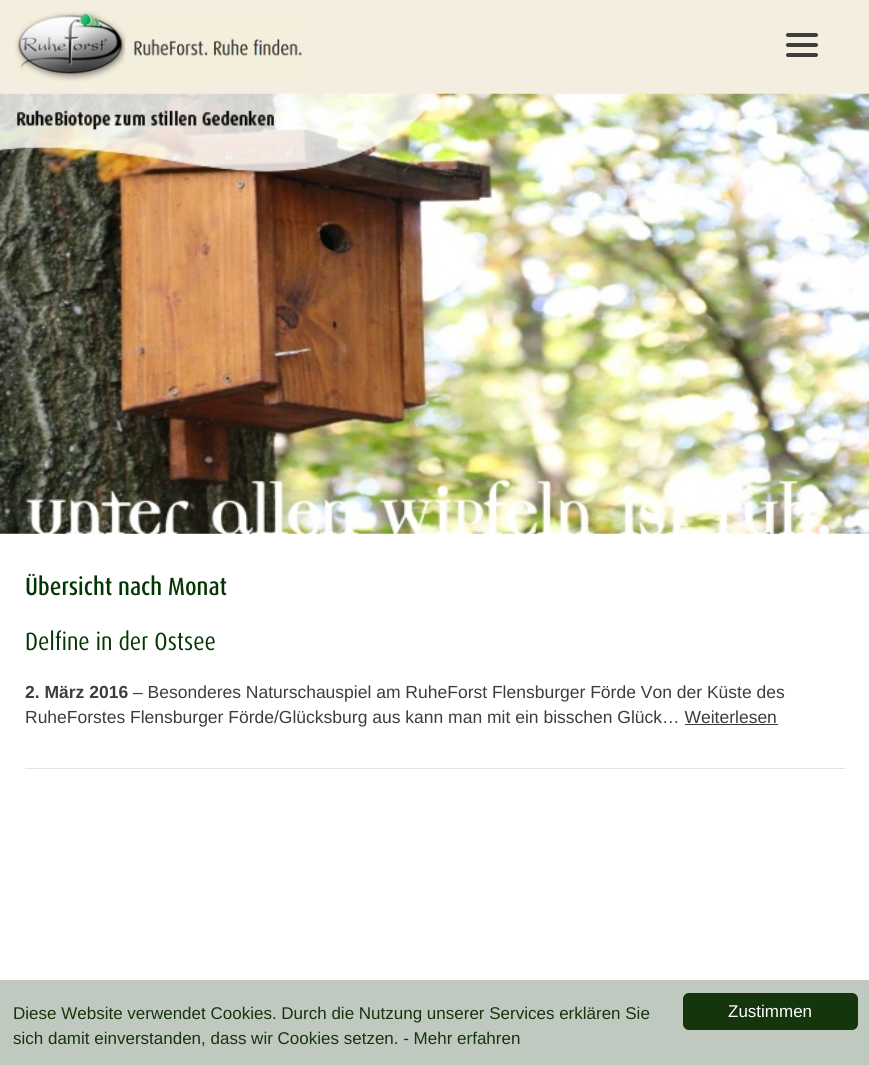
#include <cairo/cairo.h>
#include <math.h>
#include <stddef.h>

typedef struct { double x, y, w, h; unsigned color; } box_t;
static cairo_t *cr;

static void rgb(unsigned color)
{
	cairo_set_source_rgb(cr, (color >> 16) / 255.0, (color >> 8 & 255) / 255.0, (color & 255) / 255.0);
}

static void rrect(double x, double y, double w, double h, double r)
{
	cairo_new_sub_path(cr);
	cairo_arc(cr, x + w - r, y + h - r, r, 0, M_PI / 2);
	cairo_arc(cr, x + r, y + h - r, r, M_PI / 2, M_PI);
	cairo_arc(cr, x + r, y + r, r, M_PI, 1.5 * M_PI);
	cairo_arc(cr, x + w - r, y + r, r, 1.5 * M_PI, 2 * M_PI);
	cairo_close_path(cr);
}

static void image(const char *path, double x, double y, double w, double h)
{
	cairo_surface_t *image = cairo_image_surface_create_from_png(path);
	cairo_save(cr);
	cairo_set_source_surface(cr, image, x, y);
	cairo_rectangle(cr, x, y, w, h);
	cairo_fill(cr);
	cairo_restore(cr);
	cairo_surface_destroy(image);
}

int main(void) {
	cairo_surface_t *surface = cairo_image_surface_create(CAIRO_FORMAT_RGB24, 869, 1065);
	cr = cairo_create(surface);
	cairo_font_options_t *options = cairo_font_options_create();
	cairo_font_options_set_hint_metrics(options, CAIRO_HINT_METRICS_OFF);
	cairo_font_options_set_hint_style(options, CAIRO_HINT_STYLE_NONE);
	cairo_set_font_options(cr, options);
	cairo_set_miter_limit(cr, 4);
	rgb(0xffffff);
	cairo_paint(cr);
	rgb(0xf3eedf);
	cairo_rectangle(cr, 0, 0, 869, 94);
	cairo_fill(cr);
	image("img/1.png", 14, 9, 290, 73);
	rgb(0x3e3d39);
	rrect(786, 43, 32, 4, 2);
	cairo_fill(cr);
	rrect(786, 33, 32, 4, 2);
	cairo_fill(cr);
	rrect(786, 53, 32, 4, 2);
	cairo_fill(cr);
	image("img/2.png", 0, 93, 869, 441);
	{
		static const box_t items[] = {
			{685, 724, 93, 1, 0x3e3d39},
			{25, 768, 820, 1, 0xe2e2e2},
			{0, 980, 869, 85, 0xc0c9c0},
		};
		for (size_t i = 0; i < sizeof items / sizeof *items; i++) {
			rgb(items[i].color);
			cairo_rectangle(cr, items[i].x, items[i].y, items[i].w, items[i].h);
			cairo_fill(cr);
		}
	}
	rgb(0x15350d);
	rrect(683, 993, 175, 37, 6);
	cairo_fill(cr);
	cairo_select_font_face(cr, "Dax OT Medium", CAIRO_FONT_SLANT_NORMAL, CAIRO_FONT_WEIGHT_NORMAL);
	cairo_set_font_size(cr, 25);
	rgb(0x033604);
	cairo_move_to(cr, 25, 595);
	cairo_show_text(cr, "Übersicht nach Monat");
	cairo_select_font_face(cr, "Dax OT", CAIRO_FONT_SLANT_NORMAL, CAIRO_FONT_WEIGHT_NORMAL);
	cairo_move_to(cr, 25, 650);
	cairo_show_text(cr, "Delfine in der Ostsee");
	cairo_select_font_face(cr, "Liberation Sans", CAIRO_FONT_SLANT_NORMAL, CAIRO_FONT_WEIGHT_BOLD);
	cairo_set_font_size(cr, 17.5);
	rgb(0x3e3d39);
	cairo_move_to(cr, 25, 698);
	cairo_show_text(cr, "2. März 2016");
	cairo_select_font_face(cr, "Liberation Sans", CAIRO_FONT_SLANT_NORMAL, CAIRO_FONT_WEIGHT_NORMAL);
	cairo_move_to(cr, 133, 698);
	cairo_show_text(cr, "– Besonderes Naturschauspiel am RuheForst Flensburger Förde Von der Küste des");
	cairo_move_to(cr, 25, 723);
	cairo_show_text(cr, "RuheForstes Flensburger Förde/Glücksburg aus kann man mit ein bisschen Glück… Weiterlesen");
	cairo_set_font_size(cr, 17);
	rgb(0x15350d);
	cairo_move_to(cr, 13, 1019);
	cairo_show_text(cr, "Diese Website verwendet Cookies. Durch die Nutzung unserer Services erklären Sie");
	cairo_move_to(cr, 13, 1044);
	cairo_show_text(cr, "sich damit einverstanden, dass wir Cookies setzen. - Mehr erfahren");
	rgb(0xffffff);
	cairo_move_to(cr, 728, 1017);
	cairo_show_text(cr, "Zustimmen");
	cairo_surface_write_to_png(surface, "page.png");
	cairo_font_options_destroy(options);
	cairo_destroy(cr);
	cairo_surface_destroy(surface);
	return 0;
}
